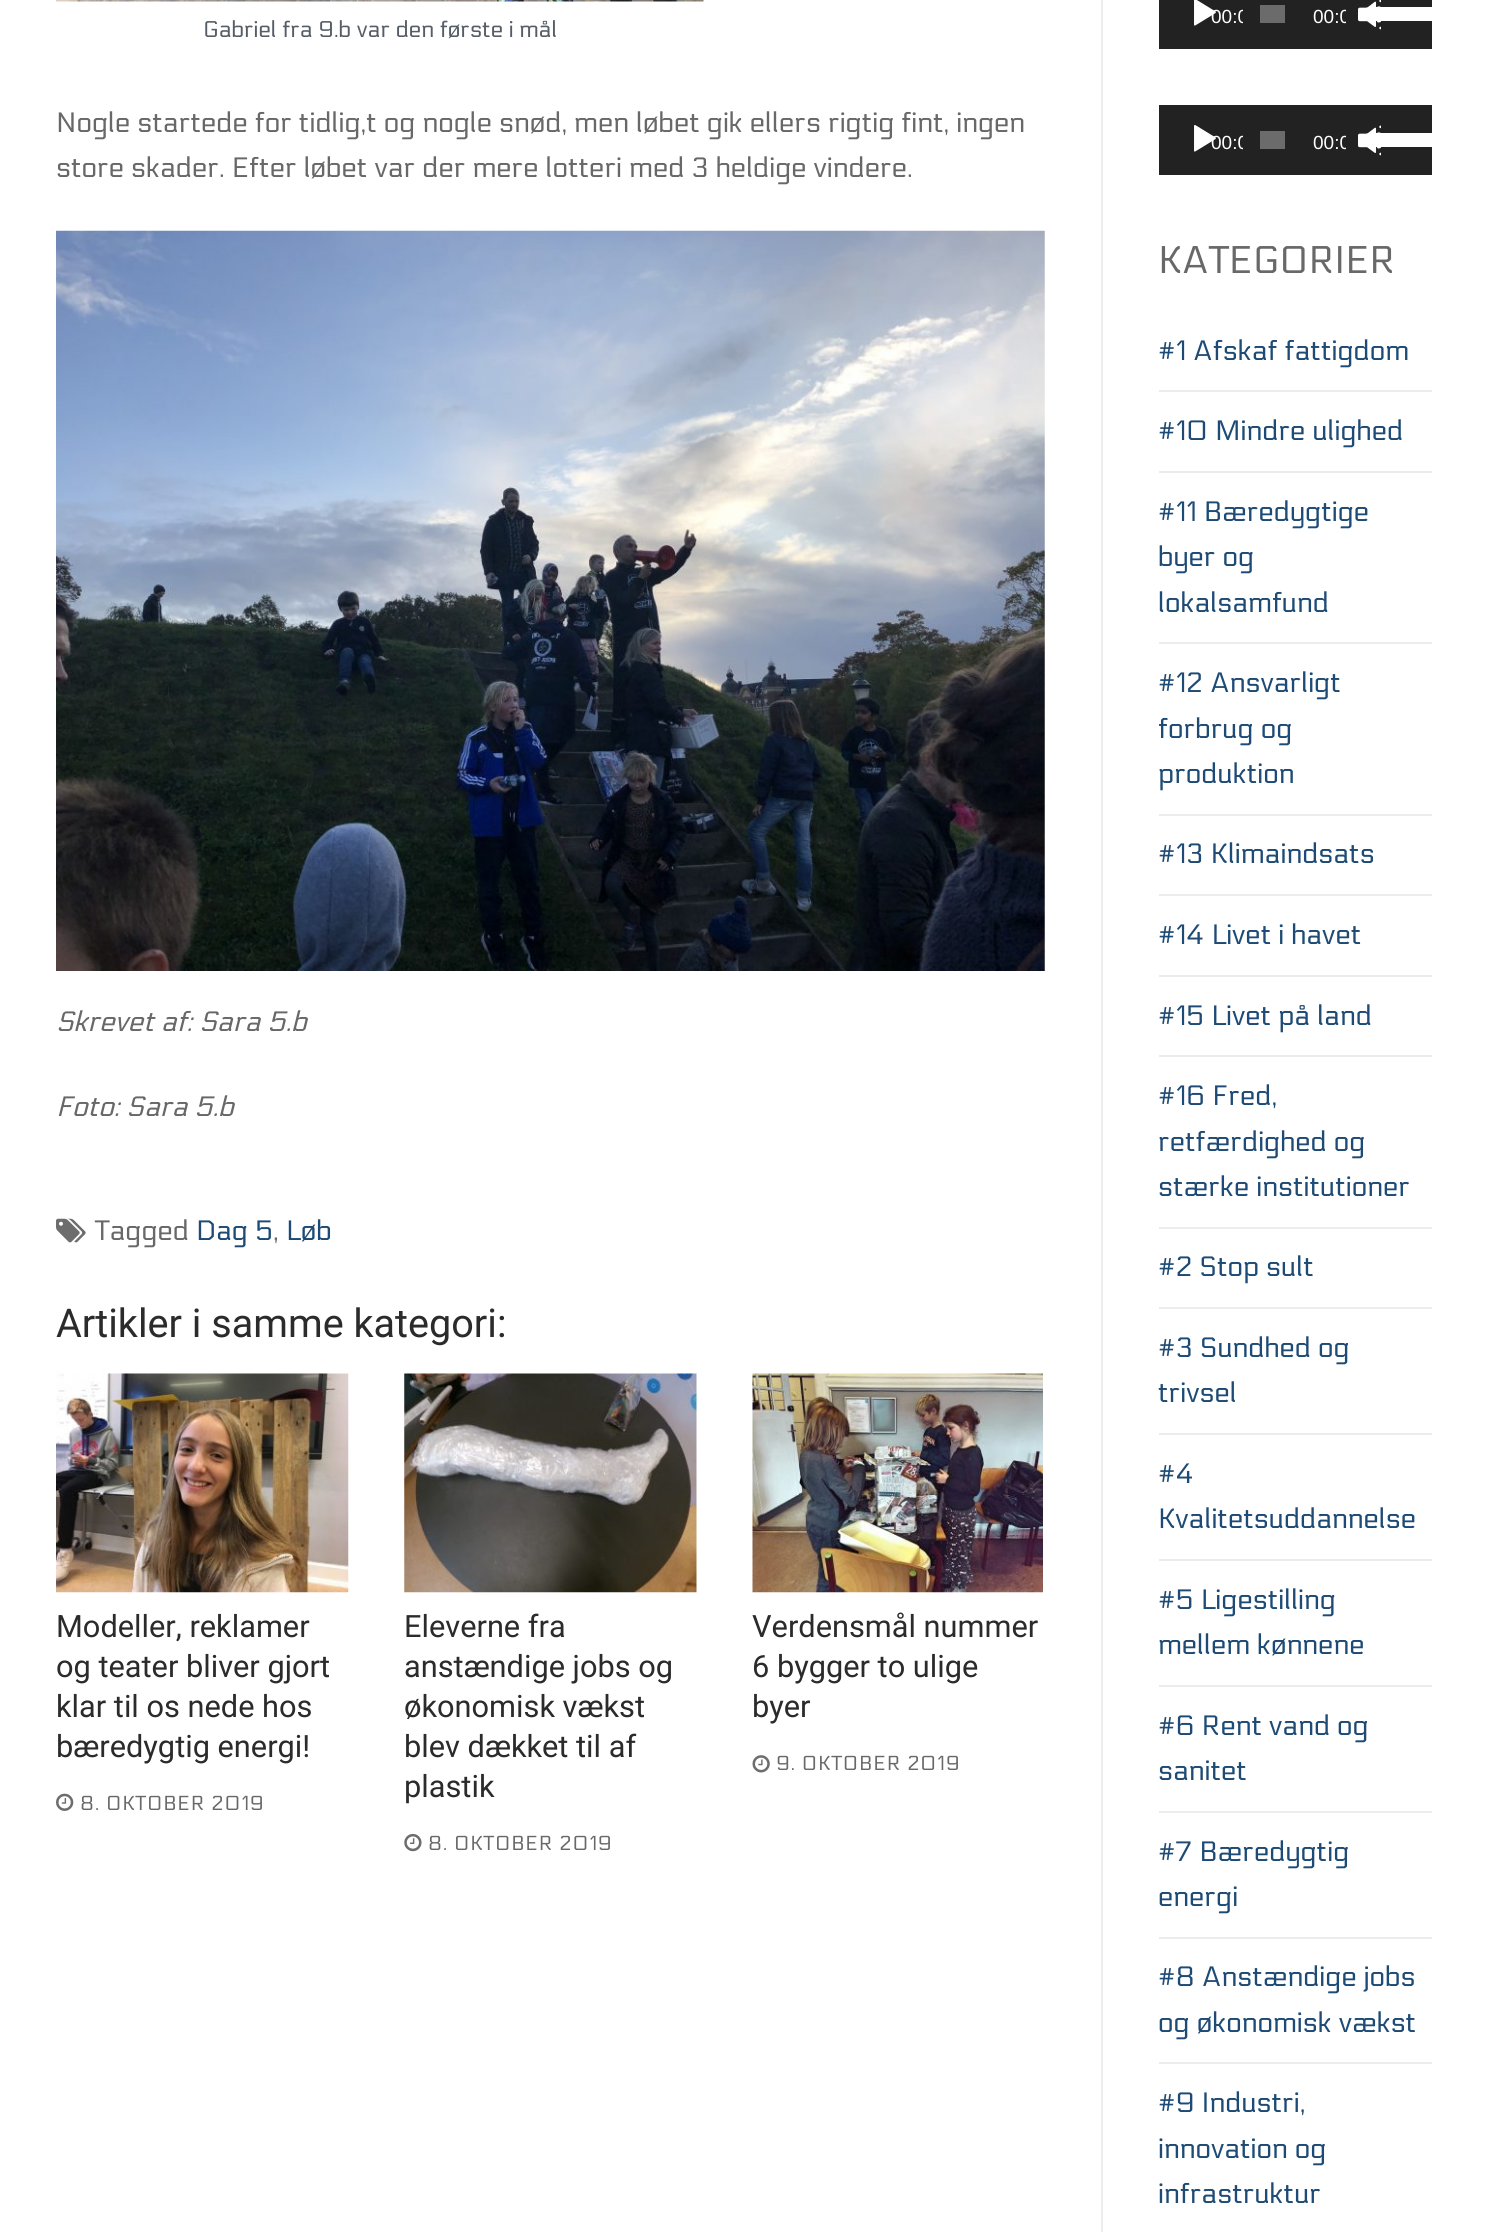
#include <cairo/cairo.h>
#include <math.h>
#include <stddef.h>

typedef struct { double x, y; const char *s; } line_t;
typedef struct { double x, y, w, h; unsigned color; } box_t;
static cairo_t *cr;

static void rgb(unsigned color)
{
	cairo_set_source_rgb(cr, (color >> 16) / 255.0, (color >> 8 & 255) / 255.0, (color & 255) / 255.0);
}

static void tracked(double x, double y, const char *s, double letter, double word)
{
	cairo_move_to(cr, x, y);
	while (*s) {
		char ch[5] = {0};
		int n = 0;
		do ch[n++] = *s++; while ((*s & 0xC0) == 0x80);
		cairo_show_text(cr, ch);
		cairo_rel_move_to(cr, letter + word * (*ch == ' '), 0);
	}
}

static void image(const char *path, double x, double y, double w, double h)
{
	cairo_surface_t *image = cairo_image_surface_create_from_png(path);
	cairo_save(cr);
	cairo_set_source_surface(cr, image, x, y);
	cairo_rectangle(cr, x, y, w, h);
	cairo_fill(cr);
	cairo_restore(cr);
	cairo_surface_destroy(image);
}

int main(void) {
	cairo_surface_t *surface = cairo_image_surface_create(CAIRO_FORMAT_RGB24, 1486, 2232);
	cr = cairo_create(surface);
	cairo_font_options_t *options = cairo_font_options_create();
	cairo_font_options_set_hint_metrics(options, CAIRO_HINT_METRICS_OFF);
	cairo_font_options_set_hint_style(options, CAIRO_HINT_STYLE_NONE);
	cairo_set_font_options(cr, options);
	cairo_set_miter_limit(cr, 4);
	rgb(0xffffff);
	cairo_paint(cr);
	rgb(0xeaecee);
	cairo_rectangle(cr, 1101, 0, 2, 2232);
	cairo_fill(cr);
	image("img/1.png", 56, 0, 648, 2);
	image("img/2.png", 56, 230, 989, 741);
	image("img/3.png", 56, 1218, 30, 25);
	image("img/4.png", 56, 1373, 293, 220);
	image("img/5.png", 56, 1793, 18, 18);
	image("img/6.png", 404, 1373, 293, 220);
	image("img/7.png", 404, 1833, 18, 19);
	image("img/8.png", 752, 1373, 291, 220);
	image("img/9.png", 752, 1755, 18, 18);
	rgb(0x222222);
	cairo_rectangle(cr, 1159, 0, 273, 49);
	cairo_fill(cr);
	rgb(0x6b6b6b);
	cairo_rectangle(cr, 1260, 5, 25, 18);
	cairo_fill(cr);
	image("img/11.png", 1358, 0, 23, 30);
	{
		static const box_t items[] = {
			{1376, 7, 56, 14, 0xffffff},
			{1159, 105, 273, 70, 0x222222},
			{1260, 131, 25, 18, 0x6b6b6b},
		};
		for (size_t i = 0; i < sizeof items / sizeof *items; i++) {
			rgb(items[i].color);
			cairo_rectangle(cr, items[i].x, items[i].y, items[i].w, items[i].h);
			cairo_fill(cr);
		}
	}
	image("img/13.png", 1358, 125, 23, 31);
	{
		static const box_t items[] = {
			{1376, 133, 56, 14, 0xffffff},
			{1159, 390, 273, 2, 0xeaecee},
			{1159, 471, 273, 2, 0xeaecee},
			{1159, 642, 273, 2, 0xeaecee},
			{1159, 814, 273, 2, 0xeaecee},
			{1159, 894, 273, 2, 0xeaecee},
			{1159, 975, 273, 2, 0xeaecee},
			{1159, 1055, 273, 2, 0xeaecee},
			{1159, 1227, 273, 2, 0xeaecee},
			{1159, 1307, 273, 2, 0xeaecee},
			{1159, 1433, 273, 2, 0xeaecee},
			{1159, 1559, 273, 2, 0xeaecee},
			{1159, 1685, 273, 2, 0xeaecee},
			{1159, 1811, 273, 2, 0xeaecee},
			{1159, 1937, 273, 2, 0xeaecee},
			{1159, 2062, 273, 2, 0xeaecee},
		};
		for (size_t i = 0; i < sizeof items / sizeof *items; i++) {
			rgb(items[i].color);
			cairo_rectangle(cr, items[i].x, items[i].y, items[i].w, items[i].h);
			cairo_fill(cr);
		}
	}
	cairo_select_font_face(cr, "Electrolize", CAIRO_FONT_SLANT_NORMAL, CAIRO_FONT_WEIGHT_NORMAL);
	cairo_set_font_size(cr, 22.75);
	rgb(0x555d66);
	cairo_move_to(cr, 203, 37);
	cairo_show_text(cr, "Gabriel fra 9.b var den første i mål");
	cairo_set_font_size(cr, 28);
	rgb(0x686868);
	cairo_move_to(cr, 56, 132);
	cairo_show_text(cr, "Nogle startede for tidlig,t og nogle snød, men løbet gik ellers rigtig fint, ingen");
	cairo_move_to(cr, 56, 177);
	cairo_show_text(cr, "store skader. Efter løbet var der mere lotteri med 3 heldige vindere.");
	cairo_select_font_face(cr, "Electrolize", CAIRO_FONT_SLANT_ITALIC, CAIRO_FONT_WEIGHT_NORMAL);
	cairo_move_to(cr, 56, 1031);
	cairo_show_text(cr, "Skrevet af: Sara 5.b");
	cairo_move_to(cr, 56, 1116);
	cairo_show_text(cr, "Foto: Sara 5.b");
	cairo_select_font_face(cr, "Electrolize", CAIRO_FONT_SLANT_NORMAL, CAIRO_FONT_WEIGHT_NORMAL);
	cairo_move_to(cr, 95, 1240);
	cairo_show_text(cr, "Tagged");
	rgb(0x1e4b75);
	cairo_move_to(cr, 196, 1240);
	cairo_show_text(cr, "Dag 5");
	rgb(0x686868);
	cairo_move_to(cr, 273, 1240);
	cairo_show_text(cr, ",");
	rgb(0x1e4b75);
	cairo_move_to(cr, 286, 1240);
	cairo_show_text(cr, "Løb");
	cairo_select_font_face(cr, "Roboto", CAIRO_FONT_SLANT_NORMAL, CAIRO_FONT_WEIGHT_NORMAL);
	cairo_set_font_size(cr, 39.6);
	rgb(0x2b2b2b);
	cairo_move_to(cr, 56, 1337);
	cairo_show_text(cr, "Artikler i samme kategori:");
	cairo_set_font_size(cr, 30.75);
	{
		static const line_t items[] = {
			{56, 1637, "Modeller, reklamer"},
			{56, 1677, "og teater bliver gjort"},
			{56, 1717, "klar til os nede hos"},
			{56, 1757, "bæredygtig energi!"},
		};
		for (size_t i = 0; i < sizeof items / sizeof *items; i++) {
			cairo_move_to(cr, items[i].x, items[i].y);
			cairo_show_text(cr, items[i].s);
		}
	}
	cairo_select_font_face(cr, "Electrolize", CAIRO_FONT_SLANT_NORMAL, CAIRO_FONT_WEIGHT_NORMAL);
	cairo_set_font_size(cr, 20.25);
	rgb(0x686868);
	tracked(80, 1810, "8. OKTOBER 2019", 0.9, 0);
	cairo_select_font_face(cr, "Roboto", CAIRO_FONT_SLANT_NORMAL, CAIRO_FONT_WEIGHT_NORMAL);
	cairo_set_font_size(cr, 30.75);
	rgb(0x2b2b2b);
	{
		static const line_t items[] = {
			{404, 1637, "Eleverne fra"},
			{404, 1677, "anstændige jobs og"},
			{404, 1717, "økonomisk vækst"},
			{404, 1757, "blev dækket til af"},
			{404, 1797, "plastik"},
		};
		for (size_t i = 0; i < sizeof items / sizeof *items; i++) {
			cairo_move_to(cr, items[i].x, items[i].y);
			cairo_show_text(cr, items[i].s);
		}
	}
	cairo_select_font_face(cr, "Electrolize", CAIRO_FONT_SLANT_NORMAL, CAIRO_FONT_WEIGHT_NORMAL);
	cairo_set_font_size(cr, 20.25);
	rgb(0x686868);
	tracked(428, 1850, "8. OKTOBER 2019", 0.9, 0);
	cairo_select_font_face(cr, "Roboto", CAIRO_FONT_SLANT_NORMAL, CAIRO_FONT_WEIGHT_NORMAL);
	cairo_set_font_size(cr, 30.75);
	rgb(0x2b2b2b);
	{
		static const line_t items[] = {
			{752, 1637, "Verdensmål nummer"},
			{752, 1677, "6 bygger to ulige"},
			{752, 1717, "byer"},
		};
		for (size_t i = 0; i < sizeof items / sizeof *items; i++) {
			cairo_move_to(cr, items[i].x, items[i].y);
			cairo_show_text(cr, items[i].s);
		}
	}
	cairo_select_font_face(cr, "Electrolize", CAIRO_FONT_SLANT_NORMAL, CAIRO_FONT_WEIGHT_NORMAL);
	cairo_set_font_size(cr, 20.25);
	rgb(0x686868);
	tracked(776, 1770, "9. OKTOBER 2019", 0.9, 0);
	cairo_save(cr);
	cairo_rectangle(cr, 1201, 0, 42, 49);
	cairo_clip(cr);
	cairo_select_font_face(cr, "Liberation Sans", CAIRO_FONT_SLANT_NORMAL, CAIRO_FONT_WEIGHT_NORMAL);
	cairo_set_font_size(cr, 19);
	rgb(0xffffff);
	cairo_move_to(cr, 1211, 23);
	cairo_show_text(cr, "00:0");
	cairo_restore(cr);
	image("img/10.png", 1194, 0, 22, 26);
	cairo_save(cr);
	cairo_rectangle(cr, 1302, 0, 44, 49);
	cairo_clip(cr);
	cairo_select_font_face(cr, "Liberation Sans", CAIRO_FONT_SLANT_NORMAL, CAIRO_FONT_WEIGHT_NORMAL);
	cairo_set_font_size(cr, 19);
	rgb(0xffffff);
	cairo_move_to(cr, 1313, 23);
	cairo_show_text(cr, "00:0");
	cairo_restore(cr);
	cairo_save(cr);
	cairo_rectangle(cr, 1201, 105, 42, 70);
	cairo_clip(cr);
	cairo_select_font_face(cr, "Liberation Sans", CAIRO_FONT_SLANT_NORMAL, CAIRO_FONT_WEIGHT_NORMAL);
	cairo_set_font_size(cr, 19);
	rgb(0xffffff);
	cairo_move_to(cr, 1211, 149);
	cairo_show_text(cr, "00:0");
	cairo_restore(cr);
	image("img/12.png", 1194, 125, 22, 27);
	cairo_save(cr);
	cairo_rectangle(cr, 1302, 105, 44, 70);
	cairo_clip(cr);
	cairo_select_font_face(cr, "Liberation Sans", CAIRO_FONT_SLANT_NORMAL, CAIRO_FONT_WEIGHT_NORMAL);
	cairo_set_font_size(cr, 19);
	rgb(0xffffff);
	cairo_move_to(cr, 1313, 149);
	cairo_show_text(cr, "00:0");
	cairo_restore(cr);
	cairo_set_font_size(cr, 38.5);
	cairo_move_to(cr, 1158, 273);
	cairo_show_text(cr, "KATEGORIER");
	cairo_set_font_size(cr, 28);
	rgb(0x1e4b75);
	{
		static const line_t items[] = {
			{1158, 360, "#1 Afskaf fattigdom"},
			{1158, 440, "#10 Mindre ulighed"},
			{1158, 521, "#11 Bæredygtige"},
			{1158, 566, "byer og"},
			{1158, 612, "lokalsamfund"},
			{1158, 692, "#12 Ansvarligt"},
			{1158, 738, "forbrug og"},
			{1158, 783, "produktion"},
			{1158, 863, "#13 Klimaindsats"},
			{1158, 944, "#14 Livet i havet"},
			{1158, 1025, "#15 Livet på land"},
			{1158, 1105, "#16 Fred,"},
			{1158, 1151, "retfærdighed og"},
			{1158, 1196, "stærke institutioner"},
			{1158, 1276, "#2 Stop sult"},
			{1158, 1357, "#3 Sundhed og"},
			{1158, 1402, "trivsel"},
			{1158, 1483, "#4"},
			{1158, 1528, "Kvalitetsuddannelse"},
			{1158, 1609, "#5 Ligestilling"},
			{1158, 1654, "mellem kønnene"},
			{1158, 1735, "#6 Rent vand og"},
			{1158, 1780, "sanitet"},
			{1158, 1861, "#7 Bæredygtig"},
			{1158, 1906, "energi"},
			{1158, 1986, "#8 Anstændige jobs"},
			{1158, 2032, "og økonomisk vækst"},
			{1158, 2112, "#9 Industri,"},
			{1158, 2158, "innovation og"},
			{1158, 2203, "infrastruktur"},
		};
		for (size_t i = 0; i < sizeof items / sizeof *items; i++) {
			cairo_move_to(cr, items[i].x, items[i].y);
			cairo_show_text(cr, items[i].s);
		}
	}
	cairo_surface_write_to_png(surface, "page.png");
	cairo_font_options_destroy(options);
	cairo_destroy(cr);
	cairo_surface_destroy(surface);
	return 0;
}
